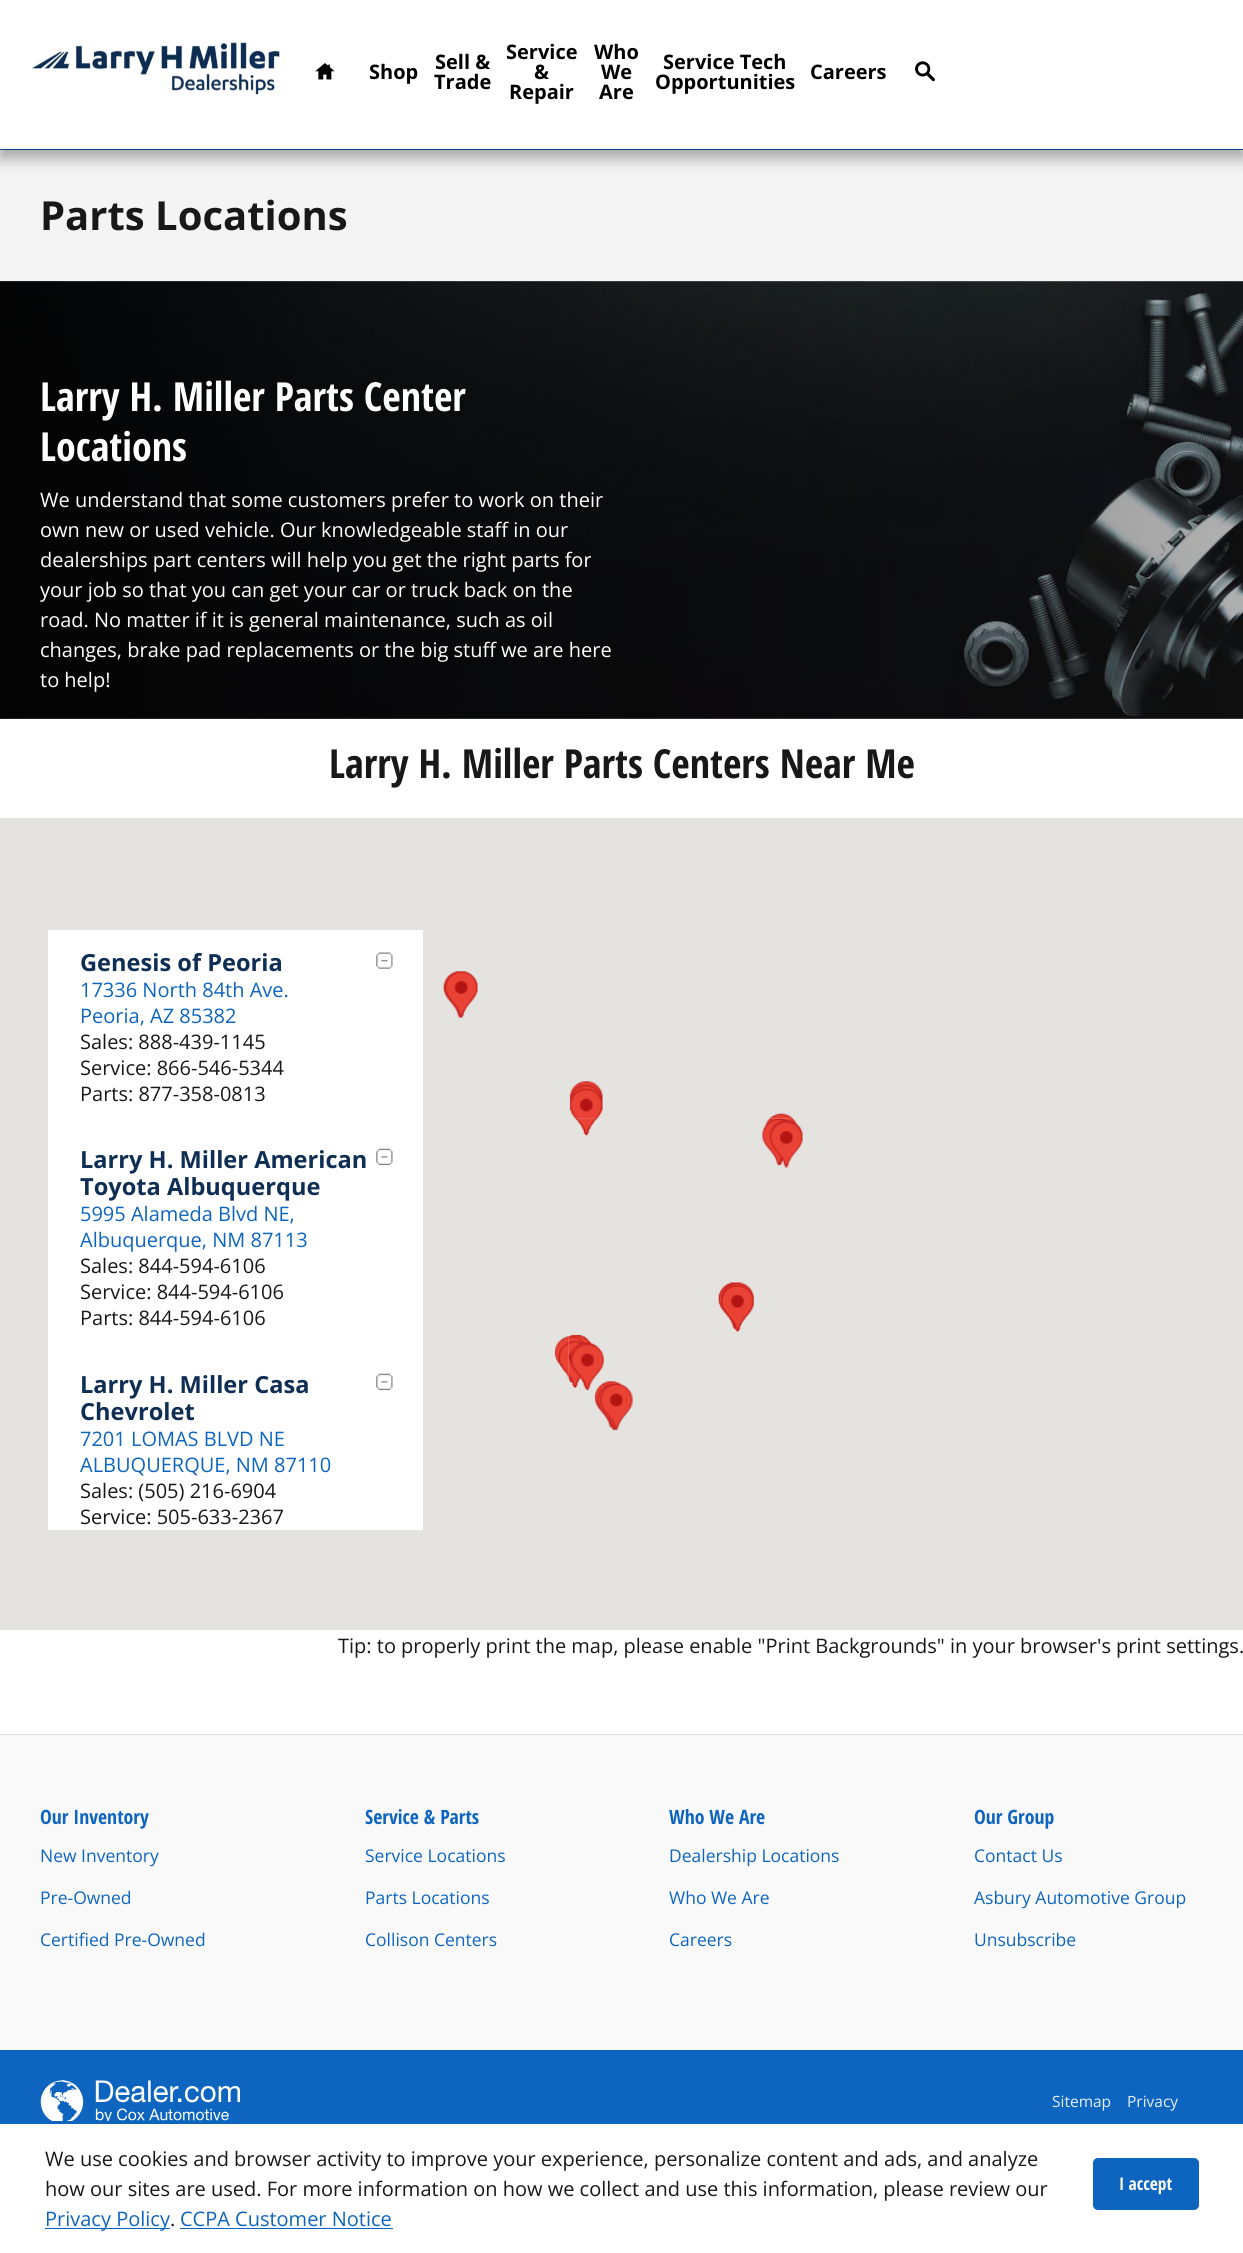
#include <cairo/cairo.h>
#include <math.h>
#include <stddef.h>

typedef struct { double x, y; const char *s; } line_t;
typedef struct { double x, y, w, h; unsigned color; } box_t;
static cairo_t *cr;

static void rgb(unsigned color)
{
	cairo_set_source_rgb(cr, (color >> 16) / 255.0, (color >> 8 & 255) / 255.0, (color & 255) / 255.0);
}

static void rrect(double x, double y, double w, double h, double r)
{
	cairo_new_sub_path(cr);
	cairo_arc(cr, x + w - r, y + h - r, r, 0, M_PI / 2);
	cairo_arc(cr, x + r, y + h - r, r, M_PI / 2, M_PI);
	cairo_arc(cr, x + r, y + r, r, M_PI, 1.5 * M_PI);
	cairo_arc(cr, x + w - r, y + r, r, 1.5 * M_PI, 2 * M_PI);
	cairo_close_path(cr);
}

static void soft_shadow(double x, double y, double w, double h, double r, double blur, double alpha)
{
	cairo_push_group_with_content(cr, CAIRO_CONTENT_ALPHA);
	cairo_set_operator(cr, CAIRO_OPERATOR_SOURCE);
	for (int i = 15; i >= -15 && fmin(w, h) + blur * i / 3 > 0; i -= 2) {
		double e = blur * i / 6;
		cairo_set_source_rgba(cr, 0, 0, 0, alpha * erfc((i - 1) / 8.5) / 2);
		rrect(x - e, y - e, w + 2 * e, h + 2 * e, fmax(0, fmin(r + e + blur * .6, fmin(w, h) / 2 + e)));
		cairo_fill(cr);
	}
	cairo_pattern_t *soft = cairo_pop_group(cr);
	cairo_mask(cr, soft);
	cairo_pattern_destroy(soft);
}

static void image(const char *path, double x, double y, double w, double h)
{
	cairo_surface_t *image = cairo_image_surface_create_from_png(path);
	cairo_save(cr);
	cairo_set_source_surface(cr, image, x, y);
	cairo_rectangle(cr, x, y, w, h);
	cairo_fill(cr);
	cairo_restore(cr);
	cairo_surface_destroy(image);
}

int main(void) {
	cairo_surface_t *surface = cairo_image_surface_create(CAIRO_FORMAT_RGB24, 1243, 2253);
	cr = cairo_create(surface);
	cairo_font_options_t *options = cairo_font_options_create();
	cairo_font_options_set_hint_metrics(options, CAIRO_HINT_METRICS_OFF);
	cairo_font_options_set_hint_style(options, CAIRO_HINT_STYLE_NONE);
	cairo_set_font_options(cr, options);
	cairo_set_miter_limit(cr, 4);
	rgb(0xffffff);
	cairo_paint(cr);
	rgb(0xf4f4f4);
	cairo_rectangle(cr, 0, 150, 1243, 131);
	cairo_fill(cr);
	rgb(0x000000);
	soft_shadow(0, 8, 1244, 150, 0, 7.5, 0.18);
	soft_shadow(0, 8, 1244, 150, 0, 7.5, 0.18);
	rgb(0xffffff);
	cairo_rectangle(cr, 0, 0, 1243, 149);
	cairo_fill(cr);
	rgb(0x0a468d);
	cairo_rectangle(cr, 0, 149, 1243, 1);
	cairo_fill(cr);
	image("img/1.png", 32, 42, 248, 53);
	image("img/2.png", 315, 63, 20, 17);
	image("img/3.png", 915, 61, 20, 21);
	image("img/4.png", 0, 281, 1243, 438);
	rgb(0xe5e3df);
	cairo_rectangle(cr, 0, 818, 1243, 812);
	cairo_fill(cr);
	rgb(0xffffff);
	cairo_rectangle(cr, 48, 930, 375, 600);
	cairo_fill(cr);
	image("img/5.png", 376, 952, 17, 17);
	image("img/6.png", 376, 1148, 17, 17);
	image("img/6.png", 376, 1373, 17, 17);
	image("img/7.png", 443, 971, 35, 47);
	image("img/10.png", 568, 1118, 235, 313);
	image("img/8.png", 569, 1081, 225, 38);
	image("img/9.png", 554, 1336, 15, 42);
	{
		static const box_t items[] = {
			{0, 1735, 1243, 315, 0xf9f9fa},
			{0, 1734, 1243, 1, 0xe0e0e1},
			{0, 2050, 1243, 74, 0x0d65bf},
		};
		for (size_t i = 0; i < sizeof items / sizeof *items; i++) {
			rgb(items[i].color);
			cairo_rectangle(cr, items[i].x, items[i].y, items[i].w, items[i].h);
			cairo_fill(cr);
		}
	}
	image("img/11.png", 40, 2080, 200, 41);
	cairo_rectangle(cr, 45, 2228, 125, 1);
	cairo_fill(cr);
	cairo_rectangle(cr, 180, 2228, 213, 1);
	cairo_fill(cr);
	rrect(1093.5, 2158.5, 105, 51, 4.5);
	cairo_fill_preserve(cr);
	cairo_set_line_width(cr, 1);
	cairo_stroke(cr);
	cairo_select_font_face(cr, "Open Sans", CAIRO_FONT_SLANT_NORMAL, CAIRO_FONT_WEIGHT_BOLD);
	cairo_set_font_size(cr, 20);
	rgb(0x000000);
	{
		static const line_t items[] = {
			{369, 79, "Shop"},
			{435, 69, "Sell &"},
			{434, 89, "Trade"},
			{506, 59, "Service"},
			{534, 79, "&"},
			{509, 99, "Repair"},
			{594, 59, "Who"},
			{601, 79, "We"},
			{599, 99, "Are"},
			{663, 69, "Service Tech"},
			{655, 89, "Opportunities"},
			{810, 79, "Careers"},
		};
		for (size_t i = 0; i < sizeof items / sizeof *items; i++) {
			cairo_move_to(cr, items[i].x, items[i].y);
			cairo_show_text(cr, items[i].s);
		}
	}
	cairo_set_font_size(cr, 40);
	rgb(0x181818);
	cairo_move_to(cr, 40, 230);
	cairo_show_text(cr, "Parts Locations");
	cairo_select_font_face(cr, "Open Sans Condensed", CAIRO_FONT_SLANT_NORMAL, CAIRO_FONT_WEIGHT_BOLD);
	rgb(0xffffff);
	cairo_move_to(cr, 40, 411);
	cairo_show_text(cr, "Larry H. Miller Parts Center");
	cairo_move_to(cr, 40, 461);
	cairo_show_text(cr, "Locations");
	cairo_select_font_face(cr, "Open Sans", CAIRO_FONT_SLANT_NORMAL, CAIRO_FONT_WEIGHT_NORMAL);
	cairo_set_font_size(cr, 20);
	{
		static const line_t items[] = {
			{40, 507, "We understand that some customers prefer to work on their"},
			{40, 537, "own new or used vehicle. Our knowledgeable staff in our"},
			{40, 567, "dealerships part centers will help you get the right parts for"},
			{40, 597, "your job so that you can get your car or truck back on the"},
			{40, 627, "road. No matter if it is general maintenance, such as oil"},
			{40, 657, "changes, brake pad replacements or the big stuff we are here"},
			{40, 687, "to help!"},
		};
		for (size_t i = 0; i < sizeof items / sizeof *items; i++) {
			cairo_move_to(cr, items[i].x, items[i].y);
			cairo_show_text(cr, items[i].s);
		}
	}
	cairo_select_font_face(cr, "Open Sans Condensed", CAIRO_FONT_SLANT_NORMAL, CAIRO_FONT_WEIGHT_BOLD);
	cairo_set_font_size(cr, 40);
	rgb(0x181818);
	cairo_move_to(cr, 329, 778);
	cairo_show_text(cr, "Larry H. Miller Parts Centers Near Me");
	cairo_select_font_face(cr, "Open Sans", CAIRO_FONT_SLANT_NORMAL, CAIRO_FONT_WEIGHT_BOLD);
	cairo_set_font_size(cr, 23.6);
	rgb(0x0f2e53);
	cairo_move_to(cr, 80, 971);
	cairo_show_text(cr, "Genesis of Peoria");
	cairo_select_font_face(cr, "Open Sans", CAIRO_FONT_SLANT_NORMAL, CAIRO_FONT_WEIGHT_NORMAL);
	cairo_set_font_size(cr, 20);
	rgb(0x0d65bf);
	cairo_move_to(cr, 80, 997);
	cairo_show_text(cr, "17336 North 84th Ave.");
	cairo_move_to(cr, 80, 1023);
	cairo_show_text(cr, "Peoria, AZ 85382");
	rgb(0x181818);
	{
		static const line_t items[] = {
			{80, 1049, "Sales: 888-439-1145"},
			{80, 1075, "Service: 866-546-5344"},
			{80, 1101, "Parts: 877-358-0813"},
		};
		for (size_t i = 0; i < sizeof items / sizeof *items; i++) {
			cairo_move_to(cr, items[i].x, items[i].y);
			cairo_show_text(cr, items[i].s);
		}
	}
	cairo_select_font_face(cr, "Open Sans", CAIRO_FONT_SLANT_NORMAL, CAIRO_FONT_WEIGHT_BOLD);
	cairo_set_font_size(cr, 23.6);
	rgb(0x0f2e53);
	cairo_move_to(cr, 80, 1168);
	cairo_show_text(cr, "Larry H. Miller American");
	cairo_move_to(cr, 80, 1195);
	cairo_show_text(cr, "Toyota Albuquerque");
	cairo_select_font_face(cr, "Open Sans", CAIRO_FONT_SLANT_NORMAL, CAIRO_FONT_WEIGHT_NORMAL);
	cairo_set_font_size(cr, 20);
	rgb(0x0d65bf);
	cairo_move_to(cr, 80, 1221);
	cairo_show_text(cr, "5995 Alameda Blvd NE,");
	cairo_move_to(cr, 80, 1247);
	cairo_show_text(cr, "Albuquerque, NM 87113");
	rgb(0x181818);
	{
		static const line_t items[] = {
			{80, 1273, "Sales: 844-594-6106"},
			{80, 1299, "Service: 844-594-6106"},
			{80, 1325, "Parts: 844-594-6106"},
		};
		for (size_t i = 0; i < sizeof items / sizeof *items; i++) {
			cairo_move_to(cr, items[i].x, items[i].y);
			cairo_show_text(cr, items[i].s);
		}
	}
	cairo_select_font_face(cr, "Open Sans", CAIRO_FONT_SLANT_NORMAL, CAIRO_FONT_WEIGHT_BOLD);
	cairo_set_font_size(cr, 23.6);
	rgb(0x0f2e53);
	cairo_move_to(cr, 80, 1393);
	cairo_show_text(cr, "Larry H. Miller Casa");
	cairo_move_to(cr, 80, 1420);
	cairo_show_text(cr, "Chevrolet");
	cairo_select_font_face(cr, "Open Sans", CAIRO_FONT_SLANT_NORMAL, CAIRO_FONT_WEIGHT_NORMAL);
	cairo_set_font_size(cr, 20);
	rgb(0x0d65bf);
	cairo_move_to(cr, 80, 1446);
	cairo_show_text(cr, "7201 LOMAS BLVD NE");
	cairo_move_to(cr, 80, 1472);
	cairo_show_text(cr, "ALBUQUERQUE, NM 87110");
	rgb(0x181818);
	{
		static const line_t items[] = {
			{80, 1498, "Sales: (505) 216-6904"},
			{80, 1524, "Service: 505-633-2367"},
			{338, 1653, "Tip: to properly print the map, please enable \"Print Backgrounds\" in your browser's print settings."},
		};
		for (size_t i = 0; i < sizeof items / sizeof *items; i++) {
			cairo_move_to(cr, items[i].x, items[i].y);
			cairo_show_text(cr, items[i].s);
		}
	}
	cairo_select_font_face(cr, "Open Sans Condensed", CAIRO_FONT_SLANT_NORMAL, CAIRO_FONT_WEIGHT_BOLD);
	cairo_set_font_size(cr, 19.75);
	rgb(0x0d65bf);
	cairo_move_to(cr, 40, 1824);
	cairo_show_text(cr, "Our Inventory");
	cairo_select_font_face(cr, "Open Sans", CAIRO_FONT_SLANT_NORMAL, CAIRO_FONT_WEIGHT_NORMAL);
	cairo_set_font_size(cr, 17.5);
	{
		static const line_t items[] = {
			{40, 1862, "New Inventory"},
			{40, 1904, "Pre-Owned"},
			{40, 1946, "Certified Pre-Owned"},
		};
		for (size_t i = 0; i < sizeof items / sizeof *items; i++) {
			cairo_move_to(cr, items[i].x, items[i].y);
			cairo_show_text(cr, items[i].s);
		}
	}
	cairo_select_font_face(cr, "Open Sans Condensed", CAIRO_FONT_SLANT_NORMAL, CAIRO_FONT_WEIGHT_BOLD);
	cairo_set_font_size(cr, 19.75);
	cairo_move_to(cr, 365, 1824);
	cairo_show_text(cr, "Service & Parts");
	cairo_select_font_face(cr, "Open Sans", CAIRO_FONT_SLANT_NORMAL, CAIRO_FONT_WEIGHT_NORMAL);
	cairo_set_font_size(cr, 17.5);
	{
		static const line_t items[] = {
			{365, 1862, "Service Locations"},
			{365, 1904, "Parts Locations"},
			{365, 1946, "Collison Centers"},
		};
		for (size_t i = 0; i < sizeof items / sizeof *items; i++) {
			cairo_move_to(cr, items[i].x, items[i].y);
			cairo_show_text(cr, items[i].s);
		}
	}
	cairo_select_font_face(cr, "Open Sans Condensed", CAIRO_FONT_SLANT_NORMAL, CAIRO_FONT_WEIGHT_BOLD);
	cairo_set_font_size(cr, 19.75);
	cairo_move_to(cr, 669, 1824);
	cairo_show_text(cr, "Who We Are");
	cairo_select_font_face(cr, "Open Sans", CAIRO_FONT_SLANT_NORMAL, CAIRO_FONT_WEIGHT_NORMAL);
	cairo_set_font_size(cr, 17.5);
	{
		static const line_t items[] = {
			{669, 1862, "Dealership Locations"},
			{669, 1904, "Who We Are"},
			{669, 1946, "Careers"},
		};
		for (size_t i = 0; i < sizeof items / sizeof *items; i++) {
			cairo_move_to(cr, items[i].x, items[i].y);
			cairo_show_text(cr, items[i].s);
		}
	}
	cairo_select_font_face(cr, "Open Sans Condensed", CAIRO_FONT_SLANT_NORMAL, CAIRO_FONT_WEIGHT_BOLD);
	cairo_set_font_size(cr, 19.75);
	cairo_move_to(cr, 974, 1824);
	cairo_show_text(cr, "Our Group");
	cairo_select_font_face(cr, "Open Sans", CAIRO_FONT_SLANT_NORMAL, CAIRO_FONT_WEIGHT_NORMAL);
	cairo_set_font_size(cr, 17.5);
	{
		static const line_t items[] = {
			{974, 1862, "Contact Us"},
			{974, 1904, "Asbury Automotive Group"},
			{974, 1946, "Unsubscribe"},
		};
		for (size_t i = 0; i < sizeof items / sizeof *items; i++) {
			cairo_move_to(cr, items[i].x, items[i].y);
			cairo_show_text(cr, items[i].s);
		}
	}
	cairo_set_font_size(cr, 15.5);
	rgb(0xe7f0f9);
	cairo_move_to(cr, 1052, 2107);
	cairo_show_text(cr, "Sitemap");
	cairo_move_to(cr, 1127, 2107);
	cairo_show_text(cr, "Privacy");
	cairo_set_font_size(cr, 20);
	rgb(0x181818);
	cairo_move_to(cr, 45, 2166);
	cairo_show_text(cr, "We use cookies and browser activity to improve your experience, personalize content and ads, and analyze");
	cairo_move_to(cr, 45, 2196);
	cairo_show_text(cr, "how our sites are used. For more information on how we collect and use this information, please review our");
	rgb(0x0d65bf);
	cairo_move_to(cr, 45, 2226);
	cairo_show_text(cr, "Privacy Policy");
	rgb(0x181818);
	cairo_move_to(cr, 170, 2226);
	cairo_show_text(cr, ".");
	rgb(0x0d65bf);
	cairo_move_to(cr, 180, 2226);
	cairo_show_text(cr, "CCPA Customer Notice");
	cairo_select_font_face(cr, "Open Sans Condensed", CAIRO_FONT_SLANT_NORMAL, CAIRO_FONT_WEIGHT_BOLD);
	cairo_set_font_size(cr, 17.5);
	rgb(0xffffff);
	cairo_move_to(cr, 1119, 2190);
	cairo_show_text(cr, "I accept");
	cairo_surface_write_to_png(surface, "page.png");
	cairo_font_options_destroy(options);
	cairo_destroy(cr);
	cairo_surface_destroy(surface);
	return 0;
}
